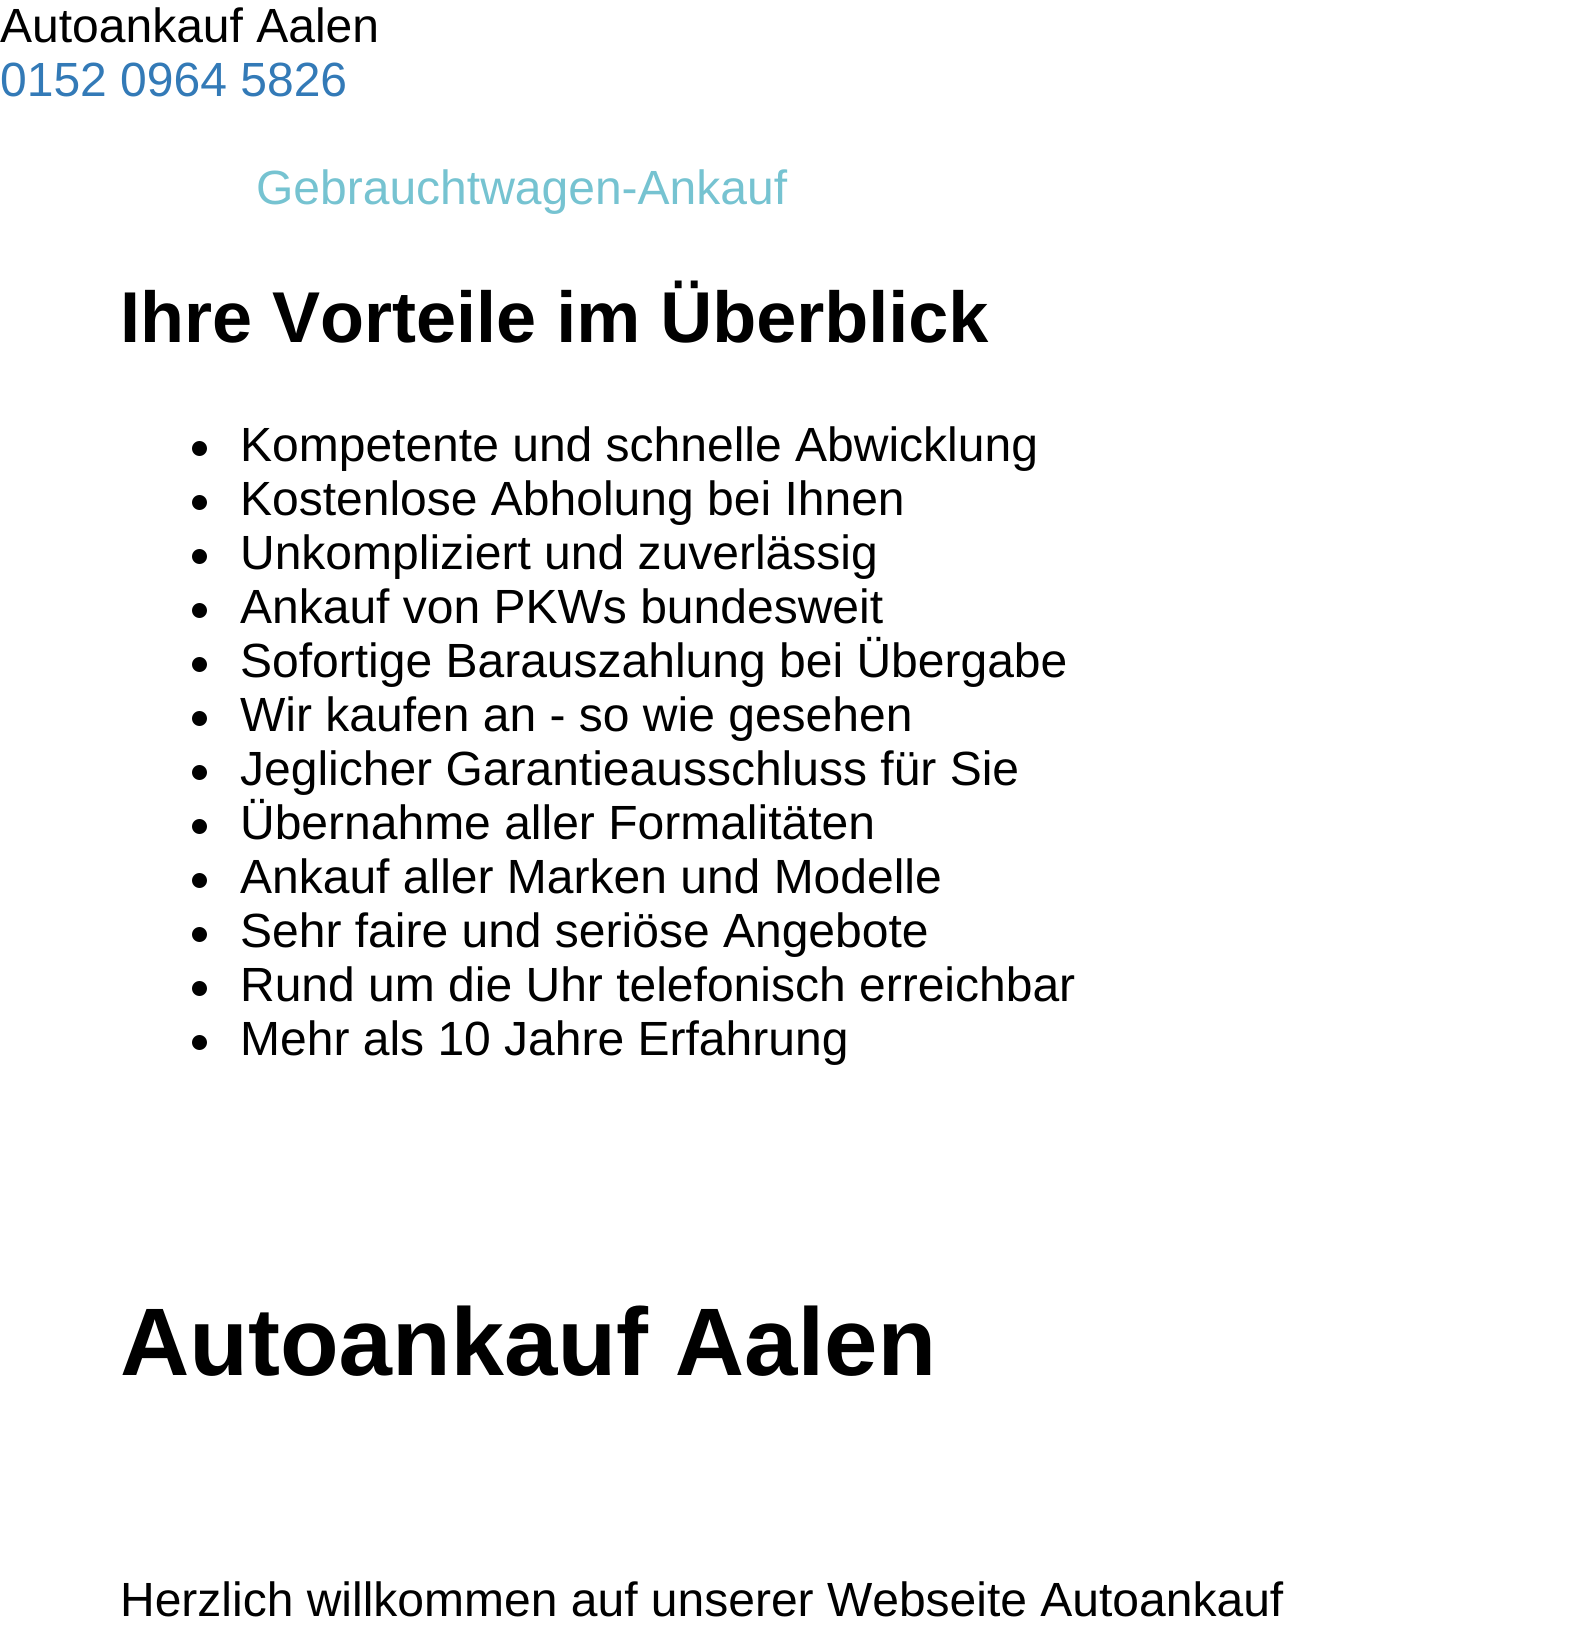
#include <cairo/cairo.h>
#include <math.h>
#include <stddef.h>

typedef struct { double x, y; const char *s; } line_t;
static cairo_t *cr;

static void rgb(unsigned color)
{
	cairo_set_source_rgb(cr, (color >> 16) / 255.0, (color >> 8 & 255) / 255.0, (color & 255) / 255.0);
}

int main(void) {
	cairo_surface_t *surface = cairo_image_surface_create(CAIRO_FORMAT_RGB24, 1580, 1640);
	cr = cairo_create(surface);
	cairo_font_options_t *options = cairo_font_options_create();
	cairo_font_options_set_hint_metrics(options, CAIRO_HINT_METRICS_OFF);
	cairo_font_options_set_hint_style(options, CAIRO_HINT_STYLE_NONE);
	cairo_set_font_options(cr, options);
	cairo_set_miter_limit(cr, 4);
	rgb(0xffffff);
	cairo_paint(cr);
	rgb(0x000000);
	cairo_arc(cr, 199.5, 448.5, 7.5, 0, 2 * M_PI);
	cairo_fill(cr);
	cairo_arc(cr, 199.5, 502.5, 7.5, 0, 2 * M_PI);
	cairo_fill(cr);
	cairo_arc(cr, 199.5, 556.5, 7.5, 0, 2 * M_PI);
	cairo_fill(cr);
	cairo_arc(cr, 199.5, 610.5, 7.5, 0, 2 * M_PI);
	cairo_fill(cr);
	cairo_arc(cr, 199.5, 664.5, 7.5, 0, 2 * M_PI);
	cairo_fill(cr);
	cairo_arc(cr, 199.5, 718.5, 7.5, 0, 2 * M_PI);
	cairo_fill(cr);
	cairo_arc(cr, 199.5, 772.5, 7.5, 0, 2 * M_PI);
	cairo_fill(cr);
	cairo_arc(cr, 199.5, 826.5, 7.5, 0, 2 * M_PI);
	cairo_fill(cr);
	cairo_arc(cr, 199.5, 880.5, 7.5, 0, 2 * M_PI);
	cairo_fill(cr);
	cairo_arc(cr, 199.5, 934.5, 7.5, 0, 2 * M_PI);
	cairo_fill(cr);
	cairo_arc(cr, 199.5, 988.5, 7.5, 0, 2 * M_PI);
	cairo_fill(cr);
	cairo_arc(cr, 199.5, 1042.5, 7.5, 0, 2 * M_PI);
	cairo_fill(cr);
	cairo_select_font_face(cr, "Liberation Sans", CAIRO_FONT_SLANT_NORMAL, CAIRO_FONT_WEIGHT_NORMAL);
	cairo_set_font_size(cr, 48);
	cairo_move_to(cr, 0, 42);
	cairo_show_text(cr, "Autoankauf Aalen");
	rgb(0x337ab7);
	cairo_move_to(cr, 0, 96);
	cairo_show_text(cr, "0152 0964 5826");
	rgb(0x76c3d1);
	cairo_move_to(cr, 256, 204);
	cairo_show_text(cr, "Gebrauchtwagen-Ankauf");
	cairo_select_font_face(cr, "Liberation Sans", CAIRO_FONT_SLANT_NORMAL, CAIRO_FONT_WEIGHT_BOLD);
	cairo_set_font_size(cr, 72);
	rgb(0x000000);
	cairo_move_to(cr, 120, 342);
	cairo_show_text(cr, "Ihre Vorteile im Überblick");
	cairo_select_font_face(cr, "Liberation Sans", CAIRO_FONT_SLANT_NORMAL, CAIRO_FONT_WEIGHT_NORMAL);
	cairo_set_font_size(cr, 48);
	{
		static const line_t items[] = {
			{240, 461, "Kompetente und schnelle Abwicklung"},
			{240, 515, "Kostenlose Abholung bei Ihnen"},
			{240, 569, "Unkompliziert und zuverlässig"},
			{240, 623, "Ankauf von PKWs bundesweit"},
			{240, 677, "Sofortige Barauszahlung bei Übergabe"},
			{240, 731, "Wir kaufen an - so wie gesehen"},
			{240, 785, "Jeglicher Garantieausschluss für Sie"},
			{240, 839, "Übernahme aller Formalitäten"},
			{240, 893, "Ankauf aller Marken und Modelle"},
			{240, 947, "Sehr faire und seriöse Angebote"},
			{240, 1001, "Rund um die Uhr telefonisch erreichbar"},
			{240, 1055, "Mehr als 10 Jahre Erfahrung"},
		};
		for (size_t i = 0; i < sizeof items / sizeof *items; i++) {
			cairo_move_to(cr, items[i].x, items[i].y);
			cairo_show_text(cr, items[i].s);
		}
	}
	cairo_select_font_face(cr, "Liberation Sans", CAIRO_FONT_SLANT_NORMAL, CAIRO_FONT_WEIGHT_BOLD);
	cairo_set_font_size(cr, 96);
	cairo_move_to(cr, 120, 1375);
	cairo_show_text(cr, "Autoankauf Aalen");
	cairo_select_font_face(cr, "Liberation Sans", CAIRO_FONT_SLANT_NORMAL, CAIRO_FONT_WEIGHT_NORMAL);
	cairo_set_font_size(cr, 48);
	cairo_move_to(cr, 120, 1616);
	cairo_show_text(cr, "Herzlich willkommen auf unserer Webseite Autoankauf");
	cairo_surface_write_to_png(surface, "page.png");
	cairo_font_options_destroy(options);
	cairo_destroy(cr);
	cairo_surface_destroy(surface);
	return 0;
}
